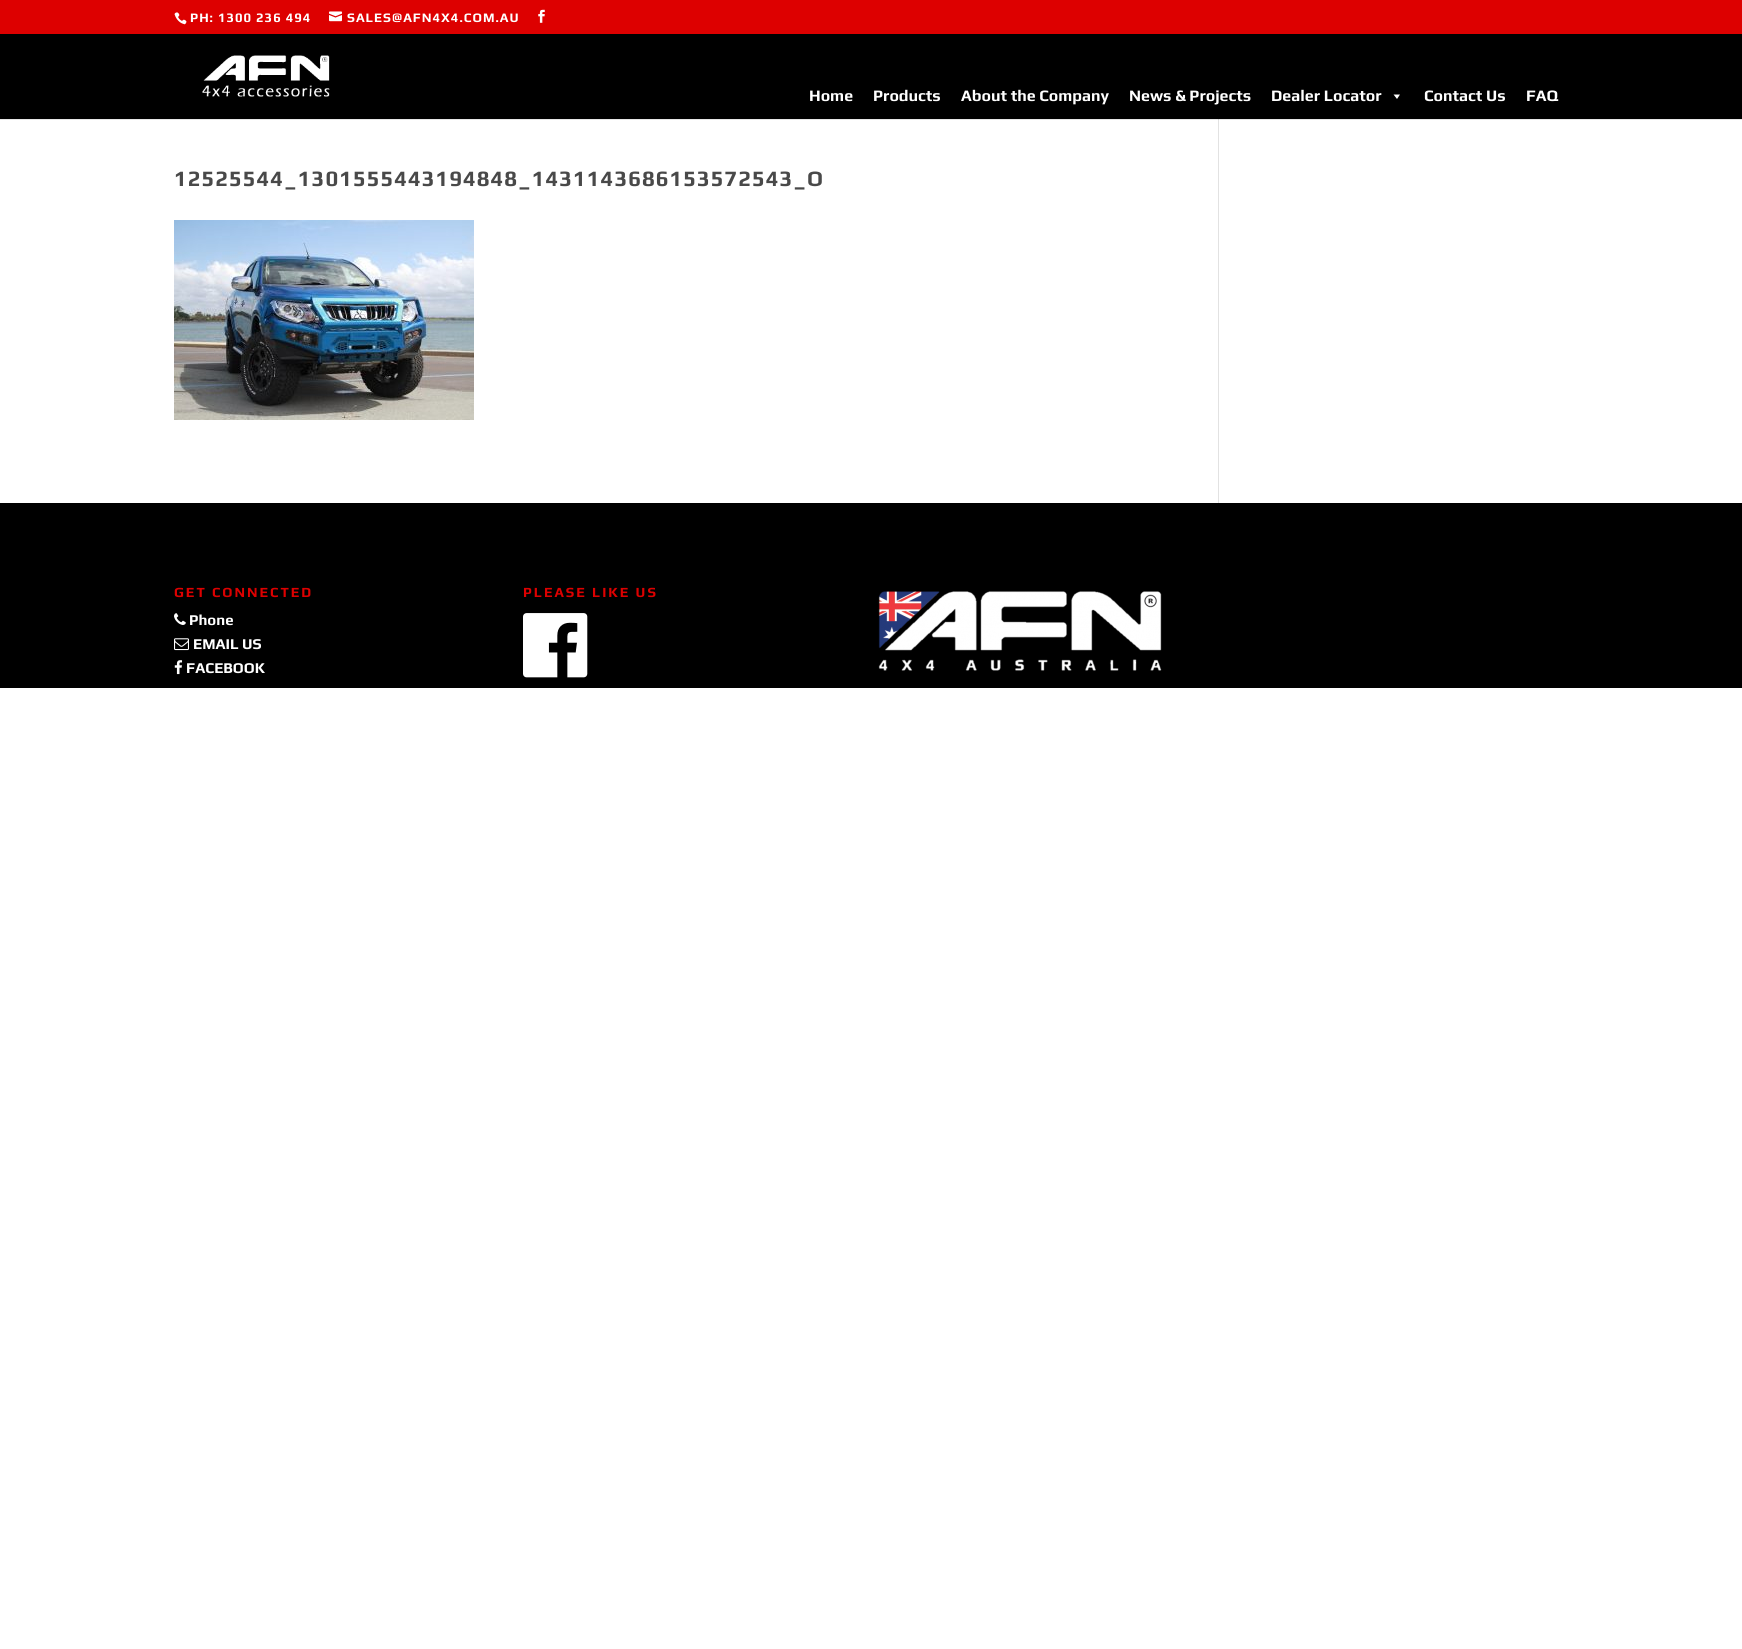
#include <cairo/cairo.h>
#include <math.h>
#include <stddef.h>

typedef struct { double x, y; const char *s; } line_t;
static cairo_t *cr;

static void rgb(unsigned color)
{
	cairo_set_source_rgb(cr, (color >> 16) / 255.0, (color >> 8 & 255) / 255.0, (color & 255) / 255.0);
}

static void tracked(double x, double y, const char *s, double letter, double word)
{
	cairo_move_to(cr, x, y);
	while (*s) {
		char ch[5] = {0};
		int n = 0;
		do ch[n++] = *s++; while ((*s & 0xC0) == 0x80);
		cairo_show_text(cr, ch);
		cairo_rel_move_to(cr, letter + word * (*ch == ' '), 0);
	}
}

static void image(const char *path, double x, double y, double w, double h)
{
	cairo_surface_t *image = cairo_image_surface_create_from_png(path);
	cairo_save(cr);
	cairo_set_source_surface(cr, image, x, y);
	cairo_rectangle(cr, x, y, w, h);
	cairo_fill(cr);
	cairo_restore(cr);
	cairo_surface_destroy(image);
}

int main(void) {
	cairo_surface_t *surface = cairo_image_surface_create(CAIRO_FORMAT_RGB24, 1742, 1649);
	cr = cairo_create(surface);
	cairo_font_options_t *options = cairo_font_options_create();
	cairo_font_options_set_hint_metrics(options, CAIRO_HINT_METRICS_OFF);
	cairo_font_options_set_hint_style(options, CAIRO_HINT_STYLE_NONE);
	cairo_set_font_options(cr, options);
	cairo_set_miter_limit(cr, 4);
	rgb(0xffffff);
	cairo_paint(cr);
	rgb(0xe6e6e6);
	cairo_rectangle(cr, 0, 119, 1742, 1);
	cairo_fill(cr);
	rgb(0xdd0000);
	cairo_rectangle(cr, 0, 0, 1742, 34);
	cairo_fill(cr);
	image("img/1.png", 174, 12, 13, 13);
	image("img/2.png", 329, 11, 13, 11);
	image("img/3.png", 538, 9, 7, 14);
	rgb(0xe2e2e2);
	cairo_rectangle(cr, 1218, 118, 1, 385);
	cairo_fill(cr);
	rgb(0x000000);
	cairo_rectangle(cr, 0, 34, 1742, 85);
	cairo_fill(cr);
	image("img/4.png", 202, 55, 128, 42);
	rgb(0xffffff);
	cairo_new_path(cr);
	cairo_move_to(cr, 1400, 94.5);
	cairo_line_to(cr, 1397, 99);
	cairo_line_to(cr, 1393.5, 94.5);
	cairo_close_path(cr);
	cairo_fill(cr);
	image("img/5.png", 174, 220, 300, 200);
	rgb(0xcbcbcb);
	cairo_rectangle(cr, 1218, 119, 1, 1);
	cairo_fill(cr);
	rgb(0x000000);
	cairo_rectangle(cr, 0, 503, 1742, 185);
	cairo_fill(cr);
	image("img/6.png", 174, 613, 12, 12);
	image("img/7.png", 174, 638, 15, 13);
	image("img/8.png", 174, 660, 9, 15);
	image("img/9.png", 523, 613, 65, 65);
	image("img/10.png", 878, 591, 284, 80);
	cairo_select_font_face(cr, "Play", CAIRO_FONT_SLANT_NORMAL, CAIRO_FONT_WEIGHT_BOLD);
	cairo_set_font_size(cr, 13);
	rgb(0xffffff);
	tracked(190, 22, "PH: 1300 236 494", 1, 0);
	tracked(347, 22, "SALES@AFN4X4.COM.AU", 1, 0);
	cairo_set_font_size(cr, 16);
	{
		static const line_t items[] = {
			{809, 101, "Home"},
			{873, 101, "Products"},
			{961, 101, "About the Company"},
			{1129, 101, "News & Projects"},
			{1271, 101, "Dealer Locator"},
			{1424, 101, "Contact Us"},
			{1526, 101, "FAQ"},
		};
		for (size_t i = 0; i < sizeof items / sizeof *items; i++) {
			cairo_move_to(cr, items[i].x, items[i].y);
			cairo_show_text(cr, items[i].s);
		}
	}
	cairo_set_font_size(cr, 22);
	rgb(0x494949);
	tracked(174, 186, "12525544_1301555443194848_1431143686153572543_O", 1, 0);
	cairo_set_font_size(cr, 14);
	rgb(0xdd0000);
	tracked(174, 597, "GET CONNECTED", 2, 0);
	cairo_set_font_size(cr, 15);
	rgb(0xffffff);
	{
		static const line_t items[] = {
			{189, 625, "Phone"},
			{193, 649, "EMAIL US"},
			{186, 673, "FACEBOOK"},
		};
		for (size_t i = 0; i < sizeof items / sizeof *items; i++) {
			cairo_move_to(cr, items[i].x, items[i].y);
			cairo_show_text(cr, items[i].s);
		}
	}
	cairo_set_font_size(cr, 14);
	rgb(0xdd0000);
	tracked(523, 597, "PLEASE LIKE US", 2, 0);
	cairo_surface_write_to_png(surface, "page.png");
	cairo_font_options_destroy(options);
	cairo_destroy(cr);
	cairo_surface_destroy(surface);
	return 0;
}
